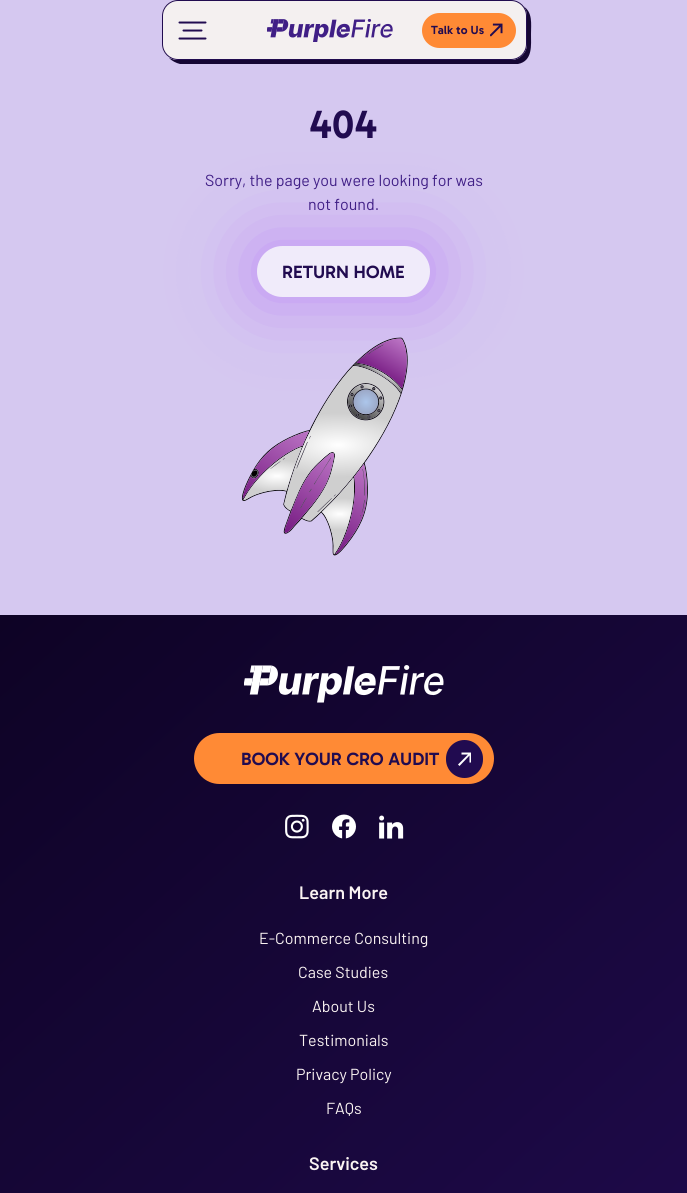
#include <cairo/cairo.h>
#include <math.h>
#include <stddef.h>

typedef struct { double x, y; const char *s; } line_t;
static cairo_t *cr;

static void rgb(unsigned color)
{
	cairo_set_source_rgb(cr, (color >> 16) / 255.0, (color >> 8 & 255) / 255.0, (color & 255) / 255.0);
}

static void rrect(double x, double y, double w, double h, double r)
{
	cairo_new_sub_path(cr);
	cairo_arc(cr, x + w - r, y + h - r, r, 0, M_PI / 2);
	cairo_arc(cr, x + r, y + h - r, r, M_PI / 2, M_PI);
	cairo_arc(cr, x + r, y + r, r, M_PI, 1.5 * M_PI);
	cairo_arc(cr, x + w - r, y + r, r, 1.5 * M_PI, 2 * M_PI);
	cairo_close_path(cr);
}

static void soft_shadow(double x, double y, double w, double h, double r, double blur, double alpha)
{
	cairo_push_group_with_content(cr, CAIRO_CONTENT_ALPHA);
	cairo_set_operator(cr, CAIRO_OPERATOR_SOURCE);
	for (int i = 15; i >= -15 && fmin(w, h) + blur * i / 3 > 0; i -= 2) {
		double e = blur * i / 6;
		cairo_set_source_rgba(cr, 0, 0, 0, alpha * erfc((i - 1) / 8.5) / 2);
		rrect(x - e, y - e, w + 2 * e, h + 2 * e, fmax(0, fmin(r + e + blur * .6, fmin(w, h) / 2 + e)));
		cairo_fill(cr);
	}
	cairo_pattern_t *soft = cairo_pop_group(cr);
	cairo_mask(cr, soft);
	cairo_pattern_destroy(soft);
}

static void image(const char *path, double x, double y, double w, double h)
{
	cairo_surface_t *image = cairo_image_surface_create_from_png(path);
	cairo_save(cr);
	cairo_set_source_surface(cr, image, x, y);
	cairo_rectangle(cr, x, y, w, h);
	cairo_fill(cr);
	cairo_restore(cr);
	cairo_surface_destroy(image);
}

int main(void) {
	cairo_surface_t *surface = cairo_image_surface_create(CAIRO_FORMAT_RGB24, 687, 1193);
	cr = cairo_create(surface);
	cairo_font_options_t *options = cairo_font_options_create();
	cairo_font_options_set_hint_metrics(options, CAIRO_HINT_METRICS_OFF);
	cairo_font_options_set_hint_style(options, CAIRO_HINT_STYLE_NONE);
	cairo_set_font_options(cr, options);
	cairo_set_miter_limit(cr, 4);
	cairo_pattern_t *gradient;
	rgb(0xd5c8f0);
	cairo_paint(cr);
	rgb(0x150633);
	cairo_new_path(cr);
	cairo_move_to(cr, 169, 58);
	cairo_curve_to(cr, 172, 61, 176, 63, 180, 64);
	cairo_line_to(cr, 518, 64);
	cairo_curve_to(cr, 533, 61, 531, 45, 531, 34);
	cairo_curve_to(cr, 531, 24, 533, 12, 523, 6);
	cairo_curve_to(cr, 525, 9, 526, 12, 526, 16);
	cairo_line_to(cr, 526, 44);
	cairo_curve_to(cr, 526, 53, 519, 60, 510, 60);
	cairo_line_to(cr, 178, 60);
	cairo_curve_to(cr, 175, 60, 172, 59, 169, 58);
	cairo_close_path(cr);
	cairo_fill(cr);
	rgb(0xf4f0f0);
	rrect(162, 0, 365, 60, 16);
	cairo_fill(cr);
	cairo_new_path(cr);
	cairo_move_to(cr, 179.5, 22.5);
	cairo_line_to(cr, 205.5, 22.5);
	cairo_move_to(cr, 183.5, 30.5);
	cairo_line_to(cr, 201.5, 30.5);
	cairo_move_to(cr, 179.5, 38.5);
	cairo_line_to(cr, 205.5, 38.5);
	rgb(0x210b50);
	cairo_set_line_cap(cr, CAIRO_LINE_CAP_ROUND);
	cairo_set_line_join(cr, CAIRO_LINE_JOIN_ROUND);
	cairo_stroke(cr);
	rrect(162.5, 0.5, 364, 59, 15.5);
	cairo_set_line_width(cr, 1);
	cairo_set_line_cap(cr, CAIRO_LINE_CAP_BUTT);
	cairo_set_line_join(cr, CAIRO_LINE_JOIN_MITER);
	cairo_stroke(cr);
	image("img/1.png", 267, 19, 126, 23);
	rgb(0xff8a35);
	rrect(422, 13, 94, 35, 17.5);
	cairo_fill(cr);
	image("img/2.png", 490, 23, 13, 14);
	rgb(0x9f33ff);
	soft_shadow(257, 246, 173, 51, 25.5, 37.5, 0.4);
	rgb(0xf0ebfa);
	rrect(257, 246, 173, 51, 25.5);
	cairo_fill(cr);
	image("img/3.png", 241, 337, 167, 219);
	gradient = cairo_pattern_create_linear(-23, 636, 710, 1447);
	cairo_pattern_add_color_stop_rgba(gradient, 0, 0.055, 0.012, 0.145, 1);
	cairo_pattern_add_color_stop_rgba(gradient, 1, 0.129, 0.043, 0.314, 1);
	cairo_set_source(cr, gradient);
	cairo_pattern_destroy(gradient);
	cairo_rectangle(cr, 0, 615, 687, 578);
	cairo_fill(cr);
	image("img/4.png", 244, 665, 200, 38);
	rgb(0xff8a35);
	rrect(194, 733, 300, 51, 25.5);
	cairo_fill(cr);
	rgb(0x210b50);
	rrect(446, 740, 37, 38, 18.5);
	cairo_fill(cr);
	cairo_save(cr);
	cairo_rectangle(cr, 458, 752, 13, 14);
	cairo_clip(cr);
	rgb(0xffffff);
	cairo_new_path(cr);
	cairo_move_to(cr, 458, 764.5);
	cairo_line_to(cr, 468, 754.5);
	cairo_line_to(cr, 461.5, 754.5);
	cairo_line_to(cr, 461.5, 752.5);
	cairo_line_to(cr, 471.5, 752.5);
	cairo_line_to(cr, 471.5, 762.5);
	cairo_line_to(cr, 469.5, 762.5);
	cairo_line_to(cr, 469.5, 755.5);
	cairo_line_to(cr, 459.5, 766);
	cairo_close_path(cr);
	cairo_fill(cr);
	cairo_restore(cr);
	image("img/5.png", 285, 814, 119, 25);
	cairo_select_font_face(cr, "Gabarito SemiBold", CAIRO_FONT_SLANT_NORMAL, CAIRO_FONT_WEIGHT_NORMAL);
	cairo_set_font_size(cr, 12);
	cairo_move_to(cr, 431, 34);
	cairo_show_text(cr, "Talk to Us");
	cairo_set_font_size(cr, 40);
	cairo_move_to(cr, 309, 138);
	cairo_show_text(cr, "404");
	cairo_select_font_face(cr, "Barlow", CAIRO_FONT_SLANT_NORMAL, CAIRO_FONT_WEIGHT_NORMAL);
	cairo_set_font_size(cr, 16);
	rgb(0x401f86);
	cairo_move_to(cr, 205, 186);
	cairo_show_text(cr, "Sorry, the page you were looking for was");
	cairo_move_to(cr, 308, 210);
	cairo_show_text(cr, "not found.");
	cairo_select_font_face(cr, "Gabarito SemiBold", CAIRO_FONT_SLANT_NORMAL, CAIRO_FONT_WEIGHT_NORMAL);
	cairo_set_font_size(cr, 18);
	rgb(0x210b50);
	cairo_move_to(cr, 282, 278);
	cairo_show_text(cr, "RETURN HOME");
	cairo_move_to(cr, 241, 765);
	cairo_show_text(cr, "BOOK YOUR CRO AUDIT");
	cairo_select_font_face(cr, "Barlow SemiBold", CAIRO_FONT_SLANT_NORMAL, CAIRO_FONT_WEIGHT_NORMAL);
	rgb(0xfaf3f2);
	cairo_move_to(cr, 299, 899);
	cairo_show_text(cr, "Learn More");
	cairo_select_font_face(cr, "Barlow", CAIRO_FONT_SLANT_NORMAL, CAIRO_FONT_WEIGHT_NORMAL);
	cairo_set_font_size(cr, 16);
	{
		static const line_t items[] = {
			{259, 944, "E-Commerce Consulting"},
			{298, 978, "Case Studies"},
			{312, 1012, "About Us"},
			{299, 1046, "Testimonials"},
			{296, 1080, "Privacy Policy"},
			{326, 1114, "FAQs"},
		};
		for (size_t i = 0; i < sizeof items / sizeof *items; i++) {
			cairo_move_to(cr, items[i].x, items[i].y);
			cairo_show_text(cr, items[i].s);
		}
	}
	cairo_select_font_face(cr, "Barlow SemiBold", CAIRO_FONT_SLANT_NORMAL, CAIRO_FONT_WEIGHT_NORMAL);
	cairo_set_font_size(cr, 18);
	cairo_move_to(cr, 309, 1170);
	cairo_show_text(cr, "Services");
	cairo_surface_write_to_png(surface, "page.png");
	cairo_font_options_destroy(options);
	cairo_destroy(cr);
	cairo_surface_destroy(surface);
	return 0;
}
